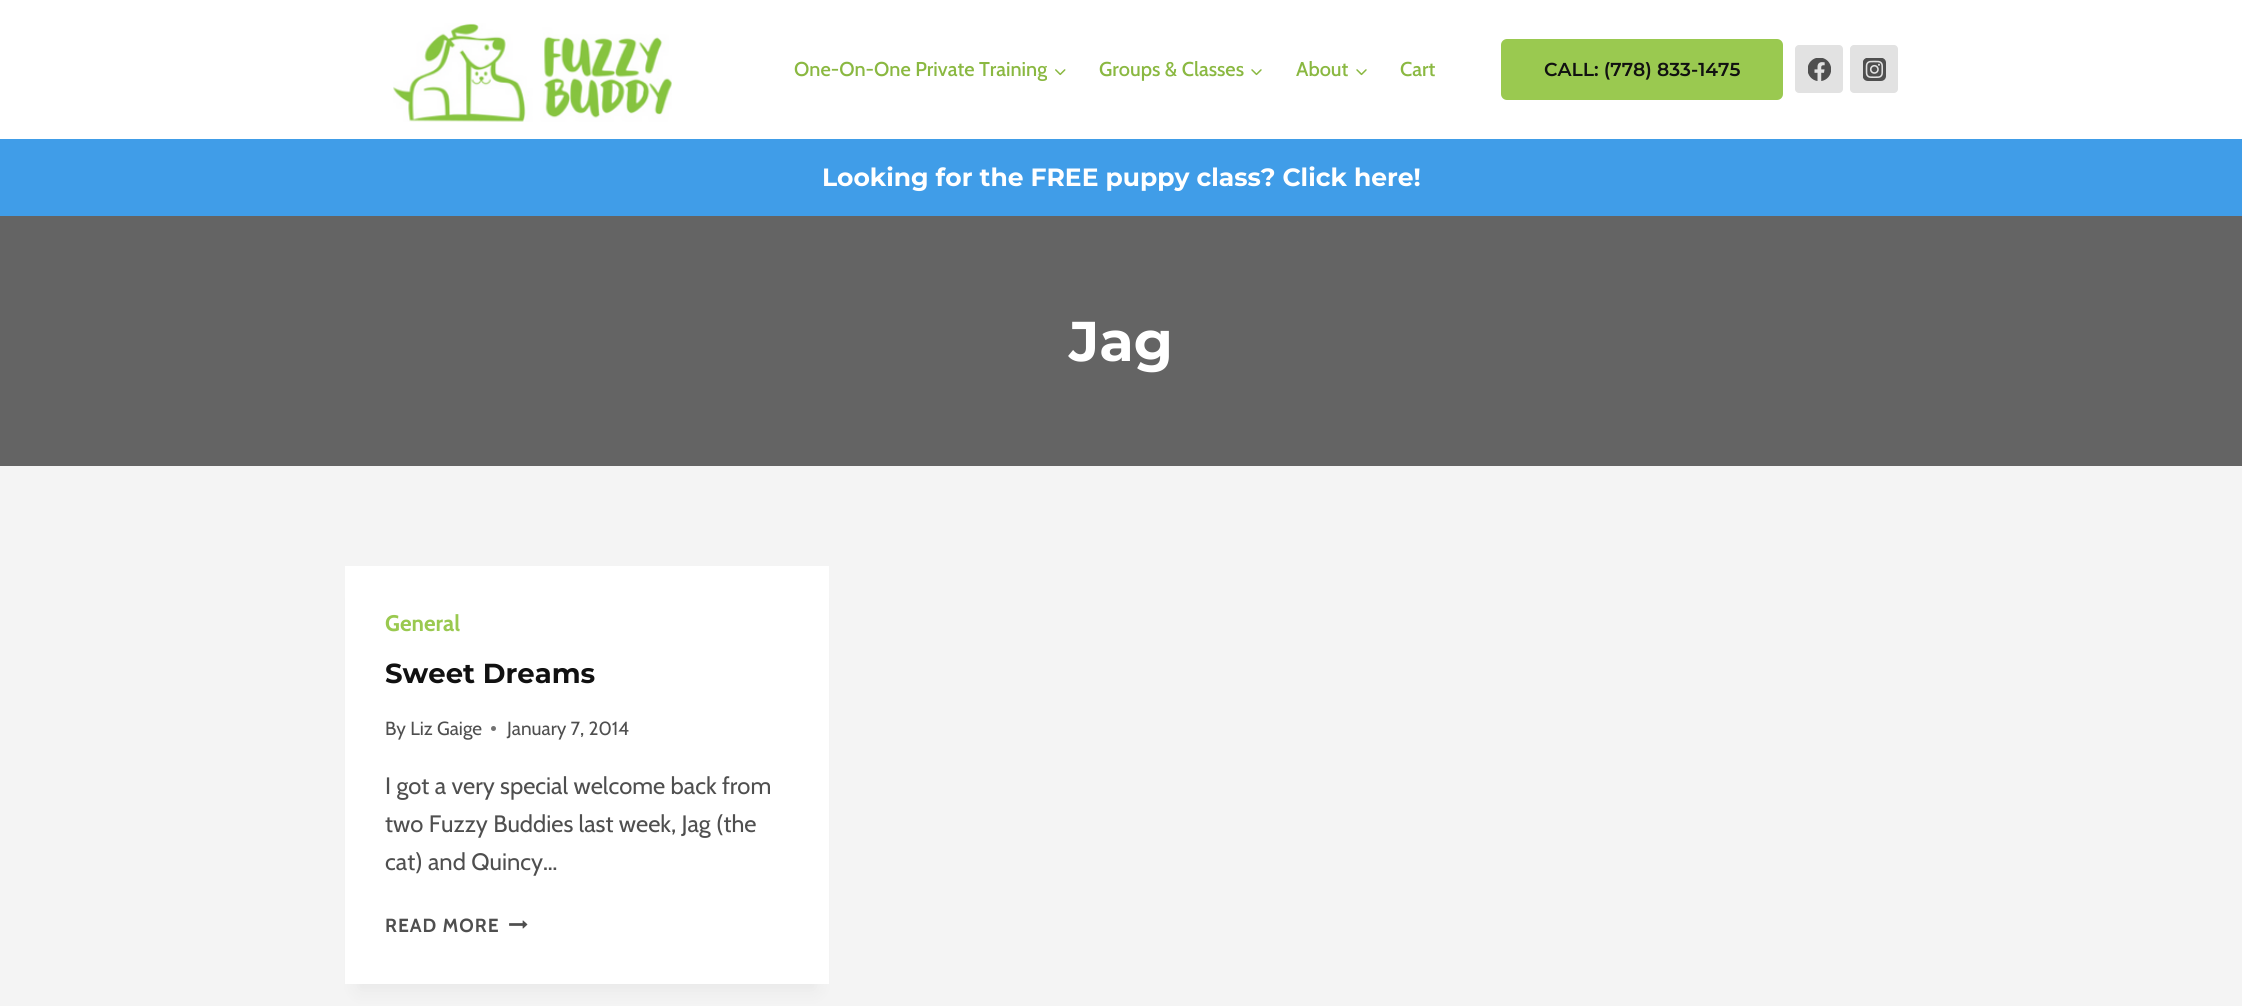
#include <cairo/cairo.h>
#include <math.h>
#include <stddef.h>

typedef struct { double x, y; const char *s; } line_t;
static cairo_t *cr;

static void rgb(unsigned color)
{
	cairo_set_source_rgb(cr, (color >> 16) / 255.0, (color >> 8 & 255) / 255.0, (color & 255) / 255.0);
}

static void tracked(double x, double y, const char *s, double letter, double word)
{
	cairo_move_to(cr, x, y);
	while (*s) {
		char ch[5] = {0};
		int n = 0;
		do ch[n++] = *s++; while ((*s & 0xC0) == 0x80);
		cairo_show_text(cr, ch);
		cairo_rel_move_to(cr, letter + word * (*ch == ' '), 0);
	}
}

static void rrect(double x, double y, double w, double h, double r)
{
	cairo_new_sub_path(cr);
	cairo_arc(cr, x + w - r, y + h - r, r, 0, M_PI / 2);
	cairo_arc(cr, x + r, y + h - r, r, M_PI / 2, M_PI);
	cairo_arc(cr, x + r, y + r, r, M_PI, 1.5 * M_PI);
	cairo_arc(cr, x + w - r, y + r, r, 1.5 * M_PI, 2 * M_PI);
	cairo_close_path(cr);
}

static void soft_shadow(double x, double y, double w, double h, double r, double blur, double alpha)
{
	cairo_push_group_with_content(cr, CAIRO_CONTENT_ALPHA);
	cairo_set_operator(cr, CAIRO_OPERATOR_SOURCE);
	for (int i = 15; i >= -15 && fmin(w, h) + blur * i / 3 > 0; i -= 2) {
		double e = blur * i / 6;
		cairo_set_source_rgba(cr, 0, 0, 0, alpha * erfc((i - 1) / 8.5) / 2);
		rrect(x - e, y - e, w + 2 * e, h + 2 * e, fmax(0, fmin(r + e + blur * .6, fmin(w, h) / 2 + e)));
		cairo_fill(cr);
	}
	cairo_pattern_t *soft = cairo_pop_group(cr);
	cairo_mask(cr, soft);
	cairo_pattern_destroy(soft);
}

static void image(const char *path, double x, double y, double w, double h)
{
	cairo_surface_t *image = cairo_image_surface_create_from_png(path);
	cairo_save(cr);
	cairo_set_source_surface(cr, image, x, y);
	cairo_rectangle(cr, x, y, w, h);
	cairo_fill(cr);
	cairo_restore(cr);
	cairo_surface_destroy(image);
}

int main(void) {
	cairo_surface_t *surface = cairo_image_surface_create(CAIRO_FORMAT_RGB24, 2242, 1006);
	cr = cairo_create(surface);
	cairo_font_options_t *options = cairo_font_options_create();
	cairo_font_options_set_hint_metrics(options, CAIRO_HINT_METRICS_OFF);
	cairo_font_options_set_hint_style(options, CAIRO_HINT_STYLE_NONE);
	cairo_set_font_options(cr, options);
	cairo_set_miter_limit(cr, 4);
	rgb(0xf4f4f4);
	cairo_paint(cr);
	rgb(0xffffff);
	cairo_rectangle(cr, 0, 0, 2242, 139);
	cairo_fill(cr);
	image("img/1.png", 393, 23, 279, 99);
	image("img/2.png", 1055, 69, 11, 7);
	image("img/3.png", 1251, 69, 11, 7);
	image("img/3.png", 1356, 69, 11, 7);
	rgb(0x9ac950);
	rrect(1501, 39, 282, 61, 6);
	cairo_fill(cr);
	rgb(0xe2e2e2);
	rrect(1795, 45, 48, 48, 4);
	cairo_fill(cr);
	image("img/4.png", 1808, 58, 23, 23);
	rrect(1850, 45, 48, 48, 4);
	cairo_fill(cr);
	image("img/5.png", 1863, 58, 23, 23);
	rgb(0x409de8);
	cairo_rectangle(cr, 0, 139, 2242, 77);
	cairo_fill(cr);
	rgb(0x646464);
	cairo_rectangle(cr, 0, 216, 2242, 250);
	cairo_fill(cr);
	rgb(0x000000);
	soft_shadow(358, 598, 458, 392, 0, 9.5, 0.05);
	rgb(0xffffff);
	cairo_rectangle(cr, 345, 566, 484, 418);
	cairo_fill(cr);
	rgb(0x727272);
	cairo_arc(cr, 493.5, 728.5, 2.5, 0, 2 * M_PI);
	cairo_fill(cr);
	image("img/6.png", 509, 920, 19, 9);
	cairo_select_font_face(cr, "Cabin Medium", CAIRO_FONT_SLANT_NORMAL, CAIRO_FONT_WEIGHT_NORMAL);
	cairo_set_font_size(cr, 20);
	rgb(0x8ab841);
	{
		static const line_t items[] = {
			{794, 76, "One-On-One Private Training"},
			{1099, 76, "Groups & Classes"},
			{1296, 76, "About"},
			{1400, 76, "Cart"},
		};
		for (size_t i = 0; i < sizeof items / sizeof *items; i++) {
			cairo_move_to(cr, items[i].x, items[i].y);
			cairo_show_text(cr, items[i].s);
		}
	}
	cairo_select_font_face(cr, "Montserrat SemiBold", CAIRO_FONT_SLANT_NORMAL, CAIRO_FONT_WEIGHT_NORMAL);
	cairo_set_font_size(cr, 18.75);
	rgb(0x111111);
	cairo_move_to(cr, 1544, 76);
	cairo_show_text(cr, "CALL: (778) 833-1475");
	cairo_select_font_face(cr, "Montserrat", CAIRO_FONT_SLANT_NORMAL, CAIRO_FONT_WEIGHT_BOLD);
	cairo_set_font_size(cr, 25);
	rgb(0xffffff);
	cairo_move_to(cr, 822, 186);
	cairo_show_text(cr, "Looking for the FREE puppy class? Click here!");
	cairo_set_font_size(cr, 56);
	cairo_move_to(cr, 1069, 361);
	cairo_show_text(cr, "Jag");
	cairo_select_font_face(cr, "Cabin", CAIRO_FONT_SLANT_NORMAL, CAIRO_FONT_WEIGHT_BOLD);
	cairo_set_font_size(cr, 22.5);
	rgb(0x9ac950);
	cairo_move_to(cr, 385, 631);
	cairo_show_text(cr, "General");
	cairo_select_font_face(cr, "Montserrat", CAIRO_FONT_SLANT_NORMAL, CAIRO_FONT_WEIGHT_BOLD);
	cairo_set_font_size(cr, 27.5);
	rgb(0x111111);
	cairo_move_to(cr, 385, 683);
	cairo_show_text(cr, "Sweet Dreams");
	cairo_select_font_face(cr, "Cabin", CAIRO_FONT_SLANT_NORMAL, CAIRO_FONT_WEIGHT_NORMAL);
	cairo_set_font_size(cr, 19);
	rgb(0x4f4f4f);
	cairo_move_to(cr, 385, 735);
	cairo_show_text(cr, "By Liz Gaige");
	cairo_move_to(cr, 507, 735);
	cairo_show_text(cr, "January 7, 2014");
	cairo_set_font_size(cr, 23.75);
	{
		static const line_t items[] = {
			{385, 794, "I got a very special welcome back from"},
			{385, 832, "two Fuzzy Buddies last week, Jag (the"},
			{385, 870, "cat) and Quincy…"},
		};
		for (size_t i = 0; i < sizeof items / sizeof *items; i++) {
			cairo_move_to(cr, items[i].x, items[i].y);
			cairo_show_text(cr, items[i].s);
		}
	}
	cairo_select_font_face(cr, "Cabin", CAIRO_FONT_SLANT_NORMAL, CAIRO_FONT_WEIGHT_BOLD);
	cairo_set_font_size(cr, 19);
	tracked(385, 932, "READ MORE", 1, 0);
	cairo_surface_write_to_png(surface, "page.png");
	cairo_font_options_destroy(options);
	cairo_destroy(cr);
	cairo_surface_destroy(surface);
	return 0;
}
